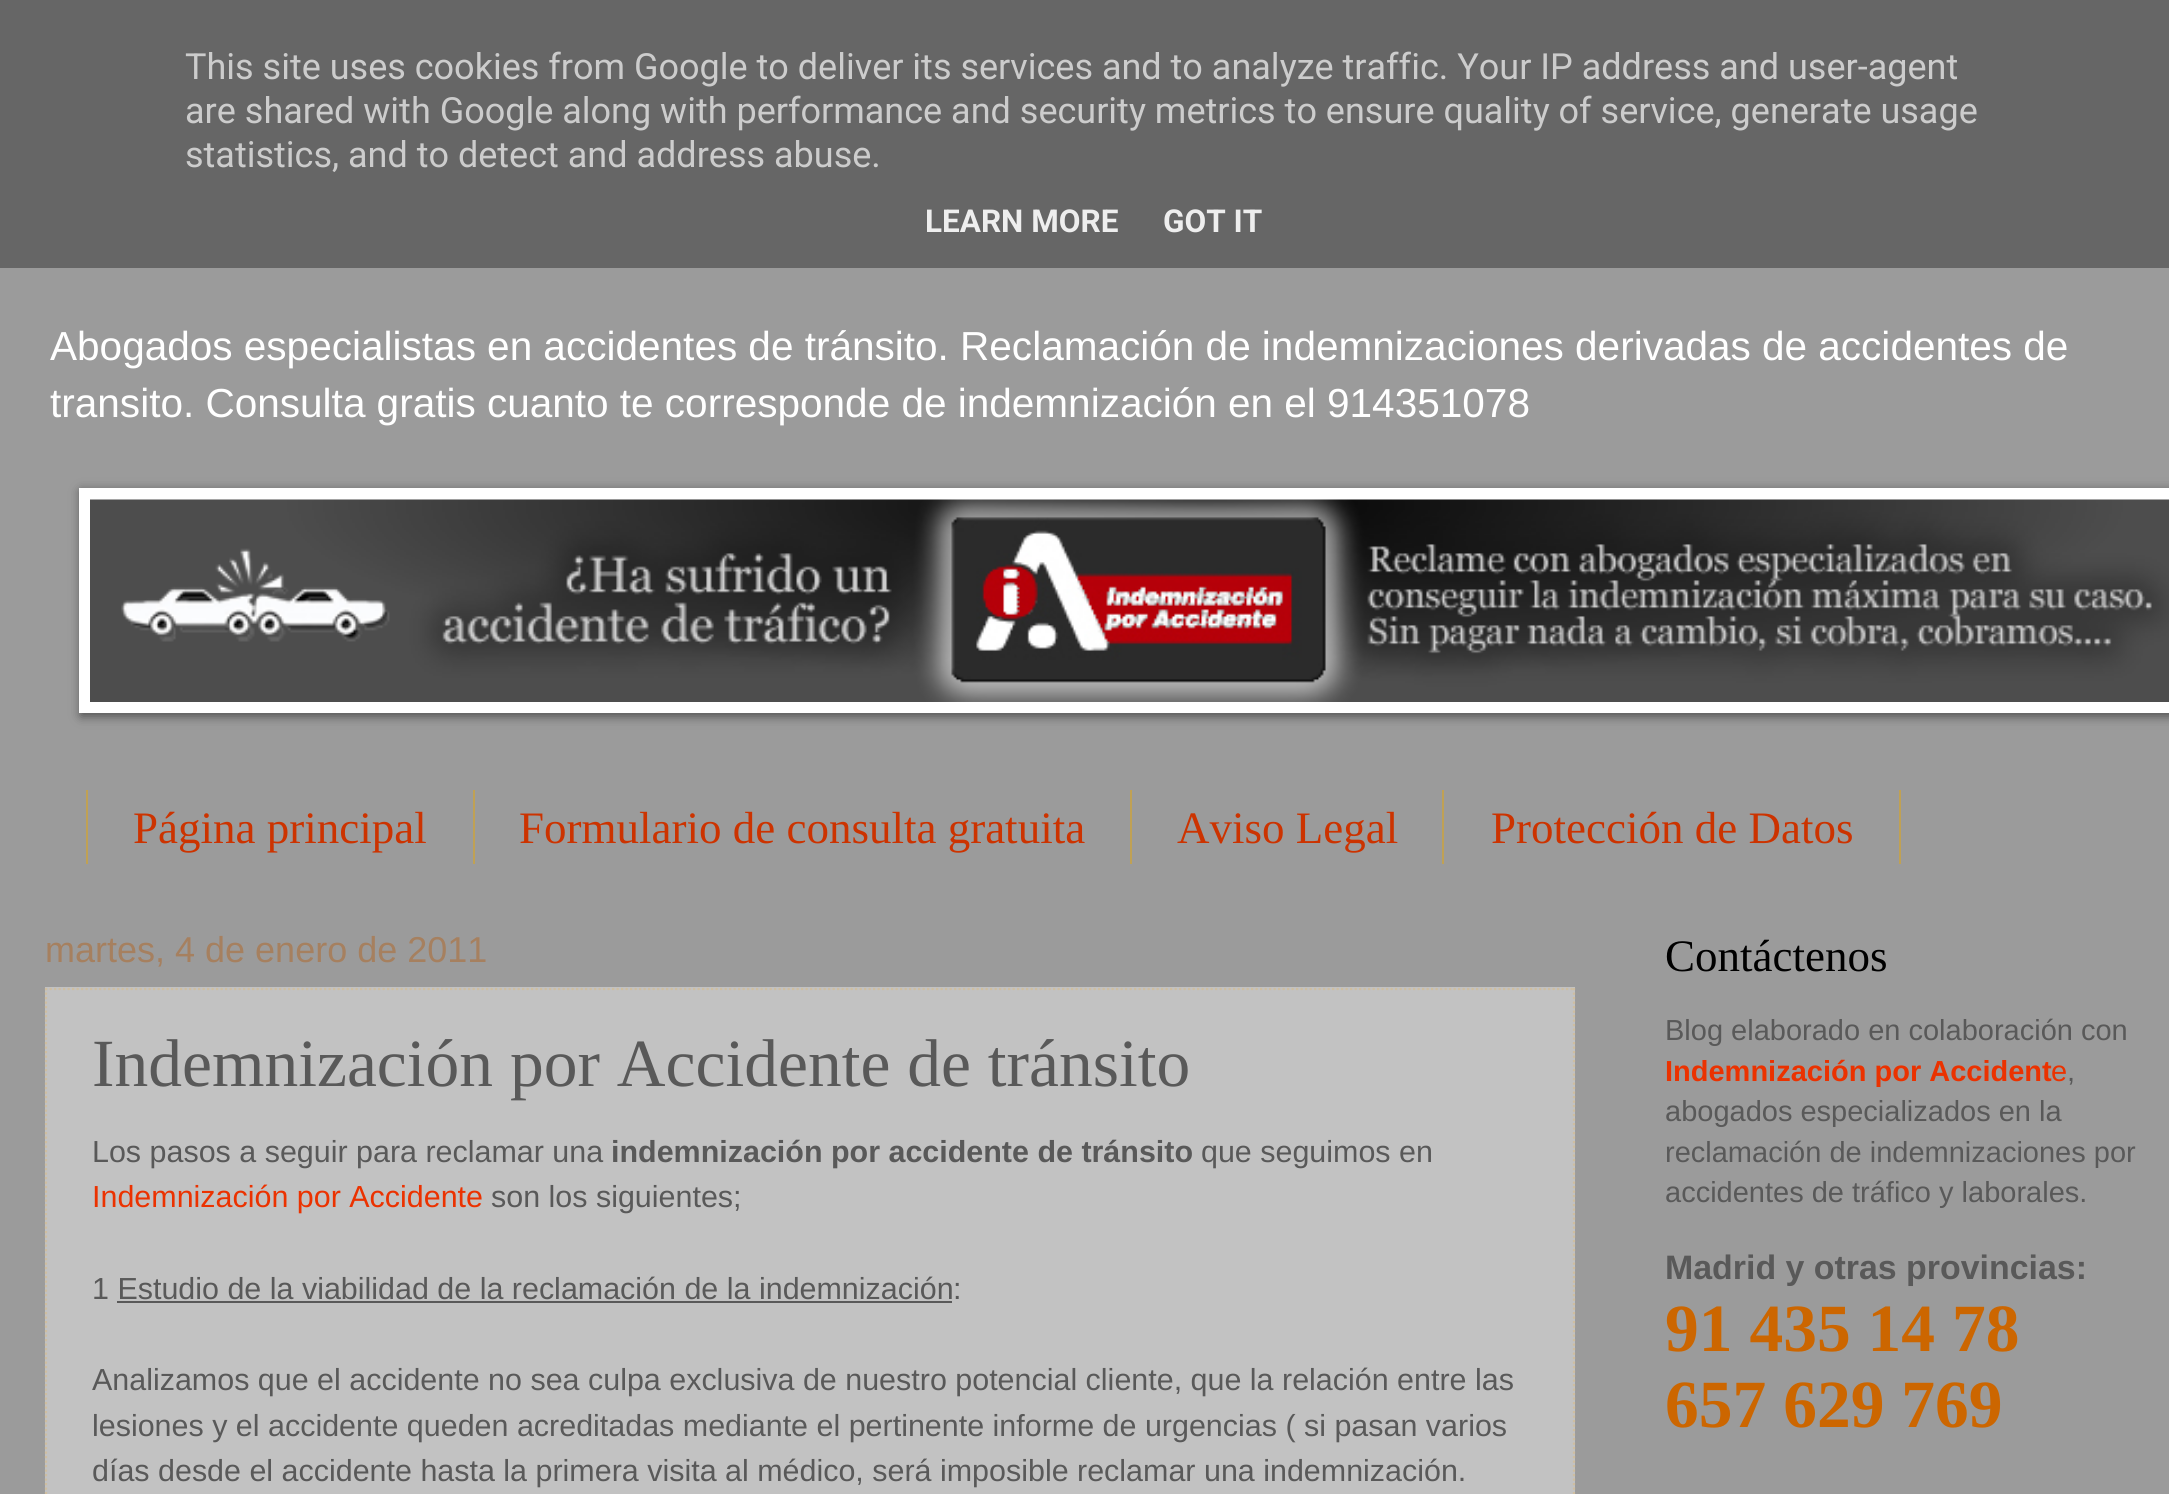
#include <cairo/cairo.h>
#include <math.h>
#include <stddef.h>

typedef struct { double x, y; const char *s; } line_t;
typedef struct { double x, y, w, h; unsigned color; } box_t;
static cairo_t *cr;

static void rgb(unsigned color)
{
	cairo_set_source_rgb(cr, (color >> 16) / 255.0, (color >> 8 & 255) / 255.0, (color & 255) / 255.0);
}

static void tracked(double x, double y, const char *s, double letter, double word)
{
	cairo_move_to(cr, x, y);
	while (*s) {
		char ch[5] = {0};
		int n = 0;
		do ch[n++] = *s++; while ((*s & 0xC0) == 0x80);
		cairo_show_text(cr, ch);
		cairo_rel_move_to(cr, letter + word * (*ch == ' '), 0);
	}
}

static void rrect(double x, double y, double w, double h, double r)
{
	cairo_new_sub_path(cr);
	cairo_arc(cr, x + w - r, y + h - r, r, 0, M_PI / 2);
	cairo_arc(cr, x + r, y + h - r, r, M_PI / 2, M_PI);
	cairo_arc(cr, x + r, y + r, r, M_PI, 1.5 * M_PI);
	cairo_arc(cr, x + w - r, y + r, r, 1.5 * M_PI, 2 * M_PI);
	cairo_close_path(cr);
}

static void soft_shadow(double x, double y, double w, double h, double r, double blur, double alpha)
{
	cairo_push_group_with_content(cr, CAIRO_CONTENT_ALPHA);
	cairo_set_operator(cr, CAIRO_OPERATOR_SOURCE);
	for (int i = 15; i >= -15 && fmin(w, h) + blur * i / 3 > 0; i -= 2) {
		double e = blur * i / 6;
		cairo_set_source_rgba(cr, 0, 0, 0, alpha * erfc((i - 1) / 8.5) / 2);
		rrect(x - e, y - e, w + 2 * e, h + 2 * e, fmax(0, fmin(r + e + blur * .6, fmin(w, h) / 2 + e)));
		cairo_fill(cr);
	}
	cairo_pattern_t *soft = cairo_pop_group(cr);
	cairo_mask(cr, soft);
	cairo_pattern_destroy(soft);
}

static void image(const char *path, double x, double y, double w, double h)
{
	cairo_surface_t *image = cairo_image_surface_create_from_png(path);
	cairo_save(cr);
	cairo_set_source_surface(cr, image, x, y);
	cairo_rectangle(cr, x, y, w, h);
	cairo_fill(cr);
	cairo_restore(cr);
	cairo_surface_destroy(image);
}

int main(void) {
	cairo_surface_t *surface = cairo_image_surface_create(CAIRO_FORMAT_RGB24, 2169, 1494);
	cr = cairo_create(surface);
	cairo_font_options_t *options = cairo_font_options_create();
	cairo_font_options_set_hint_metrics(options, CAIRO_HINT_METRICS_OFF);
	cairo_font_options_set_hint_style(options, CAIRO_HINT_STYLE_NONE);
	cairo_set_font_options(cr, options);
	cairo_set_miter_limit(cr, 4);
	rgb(0x9b9b9b);
	cairo_paint(cr);
	rgb(0x666666);
	cairo_rectangle(cr, 0, 0, 2169, 268);
	cairo_fill(cr);
	rgb(0x000000);
	soft_shadow(81, 491, 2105, 225, 0, 5.5, 0.5);
	rgb(0xffffff);
	cairo_rectangle(cr, 79, 488, 2090, 225);
	cairo_fill(cr);
	image("img/1.png", 90, 499, 2079, 203);
	{
		static const box_t items[] = {
			{473, 790, 2, 74, 0xc0a154},
			{86, 790, 2, 74, 0xc0a154},
			{1130, 790, 2, 74, 0xc0a154},
			{1442, 790, 2, 74, 0xc0a154},
			{1899, 790, 2, 74, 0xc0a154},
			{45, 987, 1530, 507, 0xc2c2c2},
		};
		for (size_t i = 0; i < sizeof items / sizeof *items; i++) {
			rgb(items[i].color);
			cairo_rectangle(cr, items[i].x, items[i].y, items[i].w, items[i].h);
			cairo_fill(cr);
		}
	}
	cairo_new_path(cr);
	cairo_move_to(cr, 45, 989);
	cairo_line_to(cr, 1575, 989);
	rgb(0xcfbea0);
	cairo_set_line_width(cr, 2.2);
	cairo_set_dash(cr, (double[]){2.25, 2.25}, 2, 0);
	cairo_stroke(cr);
	cairo_new_path(cr);
	cairo_move_to(cr, 1574, 988);
	cairo_line_to(cr, 1574, 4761);
	cairo_stroke(cr);
	cairo_new_path(cr);
	cairo_move_to(cr, 46, 988);
	cairo_line_to(cr, 46, 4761);
	cairo_stroke(cr);
	rgb(0x595959);
	cairo_rectangle(cr, 117, 1301, 835, 2);
	cairo_fill(cr);
	cairo_select_font_face(cr, "Roboto", CAIRO_FONT_SLANT_NORMAL, CAIRO_FONT_WEIGHT_NORMAL);
	cairo_set_font_size(cr, 36);
	rgb(0xcccccc);
	{
		static const line_t items[] = {
			{185, 79, "This site uses cookies from Google to deliver its services and to analyze traffic. Your IP address and user-agent"},
			{185, 123, "are shared with Google along with performance and security metrics to ensure quality of service, generate usage"},
			{185, 167, "statistics, and to detect and address abuse."},
		};
		for (size_t i = 0; i < sizeof items / sizeof *items; i++) {
			cairo_move_to(cr, items[i].x, items[i].y);
			cairo_show_text(cr, items[i].s);
		}
	}
	cairo_select_font_face(cr, "Roboto", CAIRO_FONT_SLANT_NORMAL, CAIRO_FONT_WEIGHT_BOLD);
	cairo_set_font_size(cr, 31.5);
	rgb(0xeeeeee);
	cairo_move_to(cr, 925, 232);
	cairo_show_text(cr, "LEARN MORE");
	cairo_move_to(cr, 1163, 232);
	cairo_show_text(cr, "GOT IT");
	cairo_select_font_face(cr, "Liberation Sans", CAIRO_FONT_SLANT_NORMAL, CAIRO_FONT_WEIGHT_NORMAL);
	cairo_set_font_size(cr, 40.55);
	rgb(0xffffff);
	tracked(50, 360, "Abogados especialistas en accidentes de tránsito. Reclamación de indemnizaciones derivadas de accidentes de", 0, -0.1);
	tracked(50, 417, "transito. Consulta gratis cuanto te corresponde de indemnización en el 914351078", 0, -0.1);
	cairo_select_font_face(cr, "Liberation Serif", CAIRO_FONT_SLANT_NORMAL, CAIRO_FONT_WEIGHT_NORMAL);
	cairo_set_font_size(cr, 45);
	rgb(0xcc3300);
	{
		static const line_t items[] = {
			{133, 843, "Página principal"},
			{519, 843, "Formulario de consulta gratuita"},
			{1177, 843, "Aviso Legal"},
			{1491, 843, "Protección de Datos"},
		};
		for (size_t i = 0; i < sizeof items / sizeof *items; i++) {
			cairo_move_to(cr, items[i].x, items[i].y);
			cairo_show_text(cr, items[i].s);
		}
	}
	cairo_select_font_face(cr, "Liberation Sans", CAIRO_FONT_SLANT_NORMAL, CAIRO_FONT_WEIGHT_NORMAL);
	cairo_set_font_size(cr, 36);
	rgb(0xa6805f);
	cairo_move_to(cr, 45, 962);
	cairo_show_text(cr, "martes, 4 de enero de 2011");
	cairo_select_font_face(cr, "Liberation Serif", CAIRO_FONT_SLANT_NORMAL, CAIRO_FONT_WEIGHT_NORMAL);
	cairo_set_font_size(cr, 67.5);
	rgb(0x595959);
	cairo_move_to(cr, 92, 1086);
	cairo_show_text(cr, "Indemnización por Accidente de tránsito");
	cairo_select_font_face(cr, "Liberation Sans", CAIRO_FONT_SLANT_NORMAL, CAIRO_FONT_WEIGHT_NORMAL);
	cairo_set_font_size(cr, 30.45);
	cairo_move_to(cr, 92, 1162);
	cairo_show_text(cr, "Los pasos a seguir para reclamar una");
	cairo_select_font_face(cr, "Liberation Sans", CAIRO_FONT_SLANT_NORMAL, CAIRO_FONT_WEIGHT_BOLD);
	cairo_move_to(cr, 611, 1162);
	cairo_show_text(cr, "indemnización por accidente de tránsito");
	cairo_select_font_face(cr, "Liberation Sans", CAIRO_FONT_SLANT_NORMAL, CAIRO_FONT_WEIGHT_NORMAL);
	cairo_move_to(cr, 1201, 1162);
	cairo_show_text(cr, "que seguimos en");
	rgb(0xeb3200);
	cairo_move_to(cr, 92, 1207);
	cairo_show_text(cr, "Indemnización por Accidente");
	rgb(0x595959);
	{
		static const line_t items[] = {
			{491, 1207, "son los siguientes;"},
			{92, 1299, "1 Estudio de la viabilidad de la reclamación de la indemnización"},
			{953, 1299, ":"},
			{92, 1390, "Analizamos que el accidente no sea culpa exclusiva de nuestro potencial cliente, que la relación entre las"},
			{92, 1436, "lesiones y el accidente queden acreditadas mediante el pertinente informe de urgencias ( si pasan varios"},
			{92, 1481, "días desde el accidente hasta la primera visita al médico, será imposible reclamar una indemnización."},
		};
		for (size_t i = 0; i < sizeof items / sizeof *items; i++) {
			cairo_move_to(cr, items[i].x, items[i].y);
			cairo_show_text(cr, items[i].s);
		}
	}
	cairo_select_font_face(cr, "Liberation Serif", CAIRO_FONT_SLANT_NORMAL, CAIRO_FONT_WEIGHT_NORMAL);
	cairo_set_font_size(cr, 45);
	rgb(0x000000);
	cairo_move_to(cr, 1665, 971);
	cairo_show_text(cr, "Contáctenos");
	cairo_select_font_face(cr, "Liberation Sans", CAIRO_FONT_SLANT_NORMAL, CAIRO_FONT_WEIGHT_NORMAL);
	cairo_set_font_size(cr, 29);
	rgb(0x595959);
	cairo_move_to(cr, 1665, 1040);
	cairo_show_text(cr, "Blog elaborado en colaboración con");
	cairo_select_font_face(cr, "Liberation Sans", CAIRO_FONT_SLANT_NORMAL, CAIRO_FONT_WEIGHT_BOLD);
	rgb(0xeb3200);
	cairo_move_to(cr, 1665, 1081);
	cairo_show_text(cr, "Indemnización por Accident");
	cairo_select_font_face(cr, "Liberation Sans", CAIRO_FONT_SLANT_NORMAL, CAIRO_FONT_WEIGHT_NORMAL);
	cairo_move_to(cr, 2051, 1081);
	cairo_show_text(cr, "e");
	rgb(0x595959);
	{
		static const line_t items[] = {
			{2067, 1081, ","},
			{1665, 1121, "abogados especializados en la"},
			{1665, 1162, "reclamación de indemnizaciones por"},
			{1665, 1202, "accidentes de tráfico y laborales."},
		};
		for (size_t i = 0; i < sizeof items / sizeof *items; i++) {
			cairo_move_to(cr, items[i].x, items[i].y);
			cairo_show_text(cr, items[i].s);
		}
	}
	cairo_select_font_face(cr, "Liberation Sans", CAIRO_FONT_SLANT_NORMAL, CAIRO_FONT_WEIGHT_BOLD);
	cairo_set_font_size(cr, 33.9);
	cairo_move_to(cr, 1665, 1279);
	cairo_show_text(cr, "Madrid y otras provincias:");
	cairo_select_font_face(cr, "Liberation Serif", CAIRO_FONT_SLANT_NORMAL, CAIRO_FONT_WEIGHT_BOLD);
	cairo_set_font_size(cr, 67.5);
	rgb(0xcc6600);
	cairo_move_to(cr, 1665, 1351);
	cairo_show_text(cr, "91 435 14 78");
	cairo_move_to(cr, 1665, 1427);
	cairo_show_text(cr, "657 629 769");
	cairo_surface_write_to_png(surface, "page.png");
	cairo_font_options_destroy(options);
	cairo_destroy(cr);
	cairo_surface_destroy(surface);
	return 0;
}
